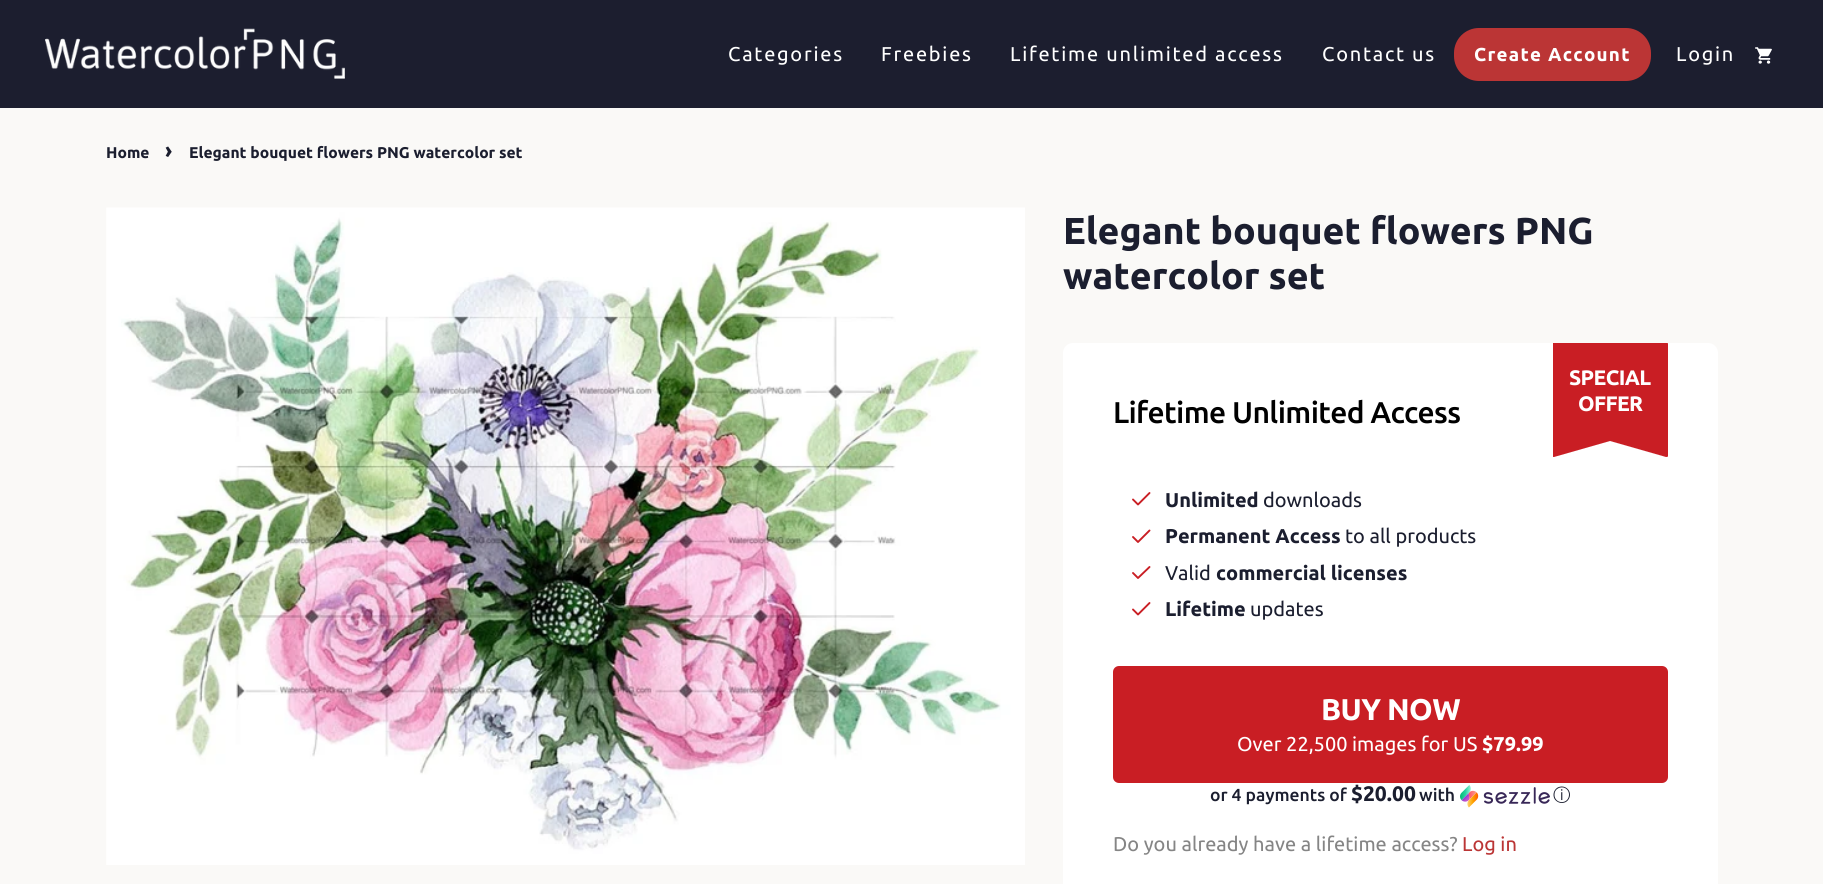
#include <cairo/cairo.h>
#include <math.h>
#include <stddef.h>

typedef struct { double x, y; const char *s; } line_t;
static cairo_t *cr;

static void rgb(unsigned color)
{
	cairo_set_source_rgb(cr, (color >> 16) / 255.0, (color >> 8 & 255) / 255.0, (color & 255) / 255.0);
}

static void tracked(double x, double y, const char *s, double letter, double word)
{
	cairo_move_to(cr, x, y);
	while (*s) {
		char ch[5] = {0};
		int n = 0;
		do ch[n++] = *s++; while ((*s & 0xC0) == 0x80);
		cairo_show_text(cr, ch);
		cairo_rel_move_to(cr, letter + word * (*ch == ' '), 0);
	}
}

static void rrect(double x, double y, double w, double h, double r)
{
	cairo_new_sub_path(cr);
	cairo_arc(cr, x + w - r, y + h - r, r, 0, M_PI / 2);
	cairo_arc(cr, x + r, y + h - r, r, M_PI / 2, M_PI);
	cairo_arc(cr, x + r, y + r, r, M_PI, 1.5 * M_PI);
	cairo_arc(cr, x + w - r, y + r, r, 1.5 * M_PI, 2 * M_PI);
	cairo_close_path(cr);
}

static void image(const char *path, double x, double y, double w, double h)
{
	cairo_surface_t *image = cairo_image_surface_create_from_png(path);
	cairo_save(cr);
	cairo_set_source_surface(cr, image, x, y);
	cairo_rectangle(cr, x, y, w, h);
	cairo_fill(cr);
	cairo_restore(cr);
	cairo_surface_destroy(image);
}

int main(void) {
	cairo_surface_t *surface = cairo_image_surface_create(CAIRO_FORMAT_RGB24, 1823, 884);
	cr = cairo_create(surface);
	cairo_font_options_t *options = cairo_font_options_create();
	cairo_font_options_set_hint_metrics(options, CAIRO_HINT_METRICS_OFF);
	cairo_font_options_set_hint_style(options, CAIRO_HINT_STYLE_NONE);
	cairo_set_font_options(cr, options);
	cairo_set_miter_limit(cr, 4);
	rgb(0xfaf9f7);
	cairo_paint(cr);
	rgb(0x1c1e2f);
	cairo_rectangle(cr, 0, 0, 1823, 108);
	cairo_fill(cr);
	image("img/1.png", 45, 28, 300, 51);
	rgb(0xbb3535);
	rrect(1454, 28, 197, 53, 25);
	cairo_fill(cr);
	image("img/2.png", 1755, 47, 17, 17);
	image("img/3.png", 106, 207, 919, 658);
	rgb(0xffffff);
	rrect(1063, 343, 655, 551, 10);
	cairo_fill(cr);
	cairo_save(cr);
	cairo_rectangle(cr, 1553, 343, 115, 115);
	cairo_clip(cr);
	rgb(0xc91e24);
	cairo_new_path(cr);
	cairo_move_to(cr, 1552, 456);
	cairo_line_to(cr, 1552, 344);
	cairo_curve_to(cr, 1552, 343, 1553, 342, 1554, 342);
	cairo_line_to(cr, 1666, 342);
	cairo_curve_to(cr, 1667, 342, 1668, 343, 1668, 344);
	cairo_line_to(cr, 1668, 456);
	cairo_curve_to(cr, 1668, 457, 1667, 457, 1666, 457);
	cairo_line_to(cr, 1610, 441);
	cairo_line_to(cr, 1554, 457);
	cairo_curve_to(cr, 1553, 457, 1552, 457, 1552, 456);
	cairo_close_path(cr);
	cairo_fill(cr);
	cairo_restore(cr);
	cairo_new_path(cr);
	cairo_move_to(cr, 1149.5, 493);
	cairo_line_to(cr, 1138, 504.5);
	cairo_line_to(cr, 1133, 499.5);
	cairo_move_to(cr, 1149.5, 530.5);
	cairo_line_to(cr, 1138, 542);
	cairo_line_to(cr, 1133, 537);
	rgb(0xc91e24);
	cairo_set_line_width(cr, 1.9);
	cairo_set_line_cap(cr, CAIRO_LINE_CAP_ROUND);
	cairo_set_line_join(cr, CAIRO_LINE_JOIN_ROUND);
	cairo_stroke(cr);
	cairo_new_path(cr);
	cairo_move_to(cr, 1149.5, 567);
	cairo_line_to(cr, 1138, 578);
	cairo_line_to(cr, 1133, 573);
	cairo_move_to(cr, 1149.5, 603);
	cairo_line_to(cr, 1138, 614.5);
	cairo_line_to(cr, 1133, 609.5);
	cairo_stroke(cr);
	rrect(1114.5, 667.5, 552, 114, 4.5);
	cairo_fill_preserve(cr);
	cairo_set_line_width(cr, 3);
	cairo_set_line_cap(cr, CAIRO_LINE_CAP_BUTT);
	cairo_set_line_join(cr, CAIRO_LINE_JOIN_MITER);
	cairo_stroke(cr);
	image("img/4.png", 1460, 785, 90, 23);
	cairo_select_font_face(cr, "Ubuntu", CAIRO_FONT_SLANT_NORMAL, CAIRO_FONT_WEIGHT_NORMAL);
	cairo_set_font_size(cr, 20);
	rgb(0xffffff);
	{
		static const line_t items[] = {
			{728, 61, "Categories"},
			{881, 61, "Freebies"},
			{1010, 61, "Lifetime unlimited access"},
			{1322, 61, "Contact us"},
		};
		for (size_t i = 0; i < sizeof items / sizeof *items; i++) {
			tracked(items[i].x, items[i].y, items[i].s, 1.75, 0);
		}
	}
	cairo_select_font_face(cr, "Ubuntu", CAIRO_FONT_SLANT_NORMAL, CAIRO_FONT_WEIGHT_BOLD);
	cairo_set_font_size(cr, 18.75);
	tracked(1474, 61, "Create Account", 1.25, 0);
	cairo_select_font_face(cr, "Ubuntu", CAIRO_FONT_SLANT_NORMAL, CAIRO_FONT_WEIGHT_NORMAL);
	cairo_set_font_size(cr, 20);
	tracked(1676, 61, "Login", 1.75, 0);
	cairo_select_font_face(cr, "Ubuntu", CAIRO_FONT_SLANT_NORMAL, CAIRO_FONT_WEIGHT_BOLD);
	cairo_set_font_size(cr, 15.6);
	rgb(0x1b1e2f);
	cairo_move_to(cr, 106, 158);
	cairo_show_text(cr, "Home");
	cairo_set_font_size(cr, 22);
	cairo_move_to(cr, 165, 158);
	cairo_show_text(cr, "›");
	cairo_set_font_size(cr, 15.6);
	cairo_move_to(cr, 189, 158);
	cairo_show_text(cr, "Elegant bouquet flowers PNG watercolor set");
	cairo_set_font_size(cr, 37.5);
	cairo_move_to(cr, 1063, 244);
	cairo_show_text(cr, "Elegant bouquet flowers PNG");
	cairo_move_to(cr, 1063, 289);
	cairo_show_text(cr, "watercolor set");
	cairo_set_font_size(cr, 21);
	rgb(0xffffff);
	tracked(1569, 385, "SPECIAL", -0.6, 0);
	tracked(1578, 411, "OFFER", -0.6, 0);
	cairo_select_font_face(cr, "Ubuntu Medium", CAIRO_FONT_SLANT_NORMAL, CAIRO_FONT_WEIGHT_NORMAL);
	cairo_set_font_size(cr, 30);
	rgb(0x000000);
	tracked(1113, 423, "Lifetime Unlimited Access", -0.6, 0);
	cairo_select_font_face(cr, "Ubuntu", CAIRO_FONT_SLANT_NORMAL, CAIRO_FONT_WEIGHT_BOLD);
	cairo_set_font_size(cr, 20);
	rgb(0x1b1e2f);
	cairo_move_to(cr, 1165, 507);
	cairo_show_text(cr, "Unlimited");
	cairo_select_font_face(cr, "Ubuntu", CAIRO_FONT_SLANT_NORMAL, CAIRO_FONT_WEIGHT_NORMAL);
	cairo_move_to(cr, 1263, 507);
	cairo_show_text(cr, "downloads");
	cairo_select_font_face(cr, "Ubuntu", CAIRO_FONT_SLANT_NORMAL, CAIRO_FONT_WEIGHT_BOLD);
	cairo_move_to(cr, 1165, 543);
	cairo_show_text(cr, "Permanent Access");
	cairo_select_font_face(cr, "Ubuntu", CAIRO_FONT_SLANT_NORMAL, CAIRO_FONT_WEIGHT_NORMAL);
	cairo_move_to(cr, 1345, 543);
	cairo_show_text(cr, "to all products");
	cairo_move_to(cr, 1165, 580);
	cairo_show_text(cr, "Valid");
	cairo_select_font_face(cr, "Ubuntu", CAIRO_FONT_SLANT_NORMAL, CAIRO_FONT_WEIGHT_BOLD);
	cairo_move_to(cr, 1216, 580);
	cairo_show_text(cr, "commercial licenses");
	cairo_move_to(cr, 1165, 616);
	cairo_show_text(cr, "Lifetime");
	cairo_select_font_face(cr, "Ubuntu", CAIRO_FONT_SLANT_NORMAL, CAIRO_FONT_WEIGHT_NORMAL);
	cairo_move_to(cr, 1250, 616);
	cairo_show_text(cr, "updates");
	cairo_select_font_face(cr, "Ubuntu", CAIRO_FONT_SLANT_NORMAL, CAIRO_FONT_WEIGHT_BOLD);
	cairo_set_font_size(cr, 30);
	rgb(0xffffff);
	tracked(1321, 720, "BUY NOW", -0.6, 0);
	cairo_select_font_face(cr, "Ubuntu", CAIRO_FONT_SLANT_NORMAL, CAIRO_FONT_WEIGHT_NORMAL);
	cairo_set_font_size(cr, 20);
	cairo_move_to(cr, 1237, 751);
	cairo_show_text(cr, "Over 22,500 images for US");
	cairo_select_font_face(cr, "Ubuntu", CAIRO_FONT_SLANT_NORMAL, CAIRO_FONT_WEIGHT_BOLD);
	cairo_move_to(cr, 1482, 751);
	cairo_show_text(cr, "$79.99");
	cairo_select_font_face(cr, "Ubuntu Medium", CAIRO_FONT_SLANT_NORMAL, CAIRO_FONT_WEIGHT_NORMAL);
	cairo_set_font_size(cr, 17.5);
	rgb(0x1b1e2f);
	cairo_move_to(cr, 1210, 801);
	cairo_show_text(cr, "or 4 payments of");
	cairo_select_font_face(cr, "Ubuntu", CAIRO_FONT_SLANT_NORMAL, CAIRO_FONT_WEIGHT_BOLD);
	cairo_set_font_size(cr, 21);
	cairo_move_to(cr, 1351, 801);
	cairo_show_text(cr, "$20.00");
	cairo_select_font_face(cr, "Ubuntu Medium", CAIRO_FONT_SLANT_NORMAL, CAIRO_FONT_WEIGHT_NORMAL);
	cairo_set_font_size(cr, 17.5);
	cairo_move_to(cr, 1419, 801);
	cairo_show_text(cr, "with");
	cairo_select_font_face(cr, "WenQuanYi Zen Hei Medium", CAIRO_FONT_SLANT_NORMAL, CAIRO_FONT_WEIGHT_NORMAL);
	cairo_move_to(cr, 1553, 801);
	cairo_show_text(cr, "ⓘ");
	cairo_select_font_face(cr, "Ubuntu", CAIRO_FONT_SLANT_NORMAL, CAIRO_FONT_WEIGHT_NORMAL);
	cairo_set_font_size(cr, 20);
	rgb(0x858585);
	cairo_move_to(cr, 1113, 851);
	cairo_show_text(cr, "Do you already have a lifetime access?");
	rgb(0xbb3535);
	cairo_move_to(cr, 1462, 851);
	cairo_show_text(cr, "Log in");
	cairo_surface_write_to_png(surface, "page.png");
	cairo_font_options_destroy(options);
	cairo_destroy(cr);
	cairo_surface_destroy(surface);
	return 0;
}
